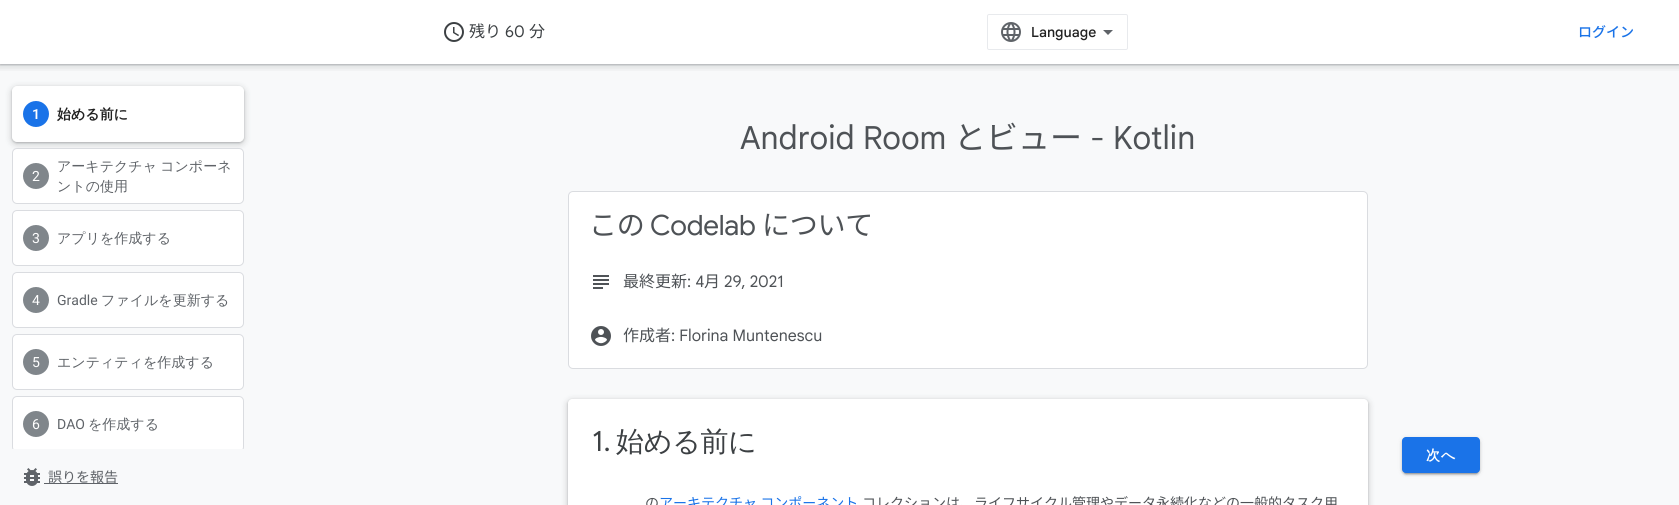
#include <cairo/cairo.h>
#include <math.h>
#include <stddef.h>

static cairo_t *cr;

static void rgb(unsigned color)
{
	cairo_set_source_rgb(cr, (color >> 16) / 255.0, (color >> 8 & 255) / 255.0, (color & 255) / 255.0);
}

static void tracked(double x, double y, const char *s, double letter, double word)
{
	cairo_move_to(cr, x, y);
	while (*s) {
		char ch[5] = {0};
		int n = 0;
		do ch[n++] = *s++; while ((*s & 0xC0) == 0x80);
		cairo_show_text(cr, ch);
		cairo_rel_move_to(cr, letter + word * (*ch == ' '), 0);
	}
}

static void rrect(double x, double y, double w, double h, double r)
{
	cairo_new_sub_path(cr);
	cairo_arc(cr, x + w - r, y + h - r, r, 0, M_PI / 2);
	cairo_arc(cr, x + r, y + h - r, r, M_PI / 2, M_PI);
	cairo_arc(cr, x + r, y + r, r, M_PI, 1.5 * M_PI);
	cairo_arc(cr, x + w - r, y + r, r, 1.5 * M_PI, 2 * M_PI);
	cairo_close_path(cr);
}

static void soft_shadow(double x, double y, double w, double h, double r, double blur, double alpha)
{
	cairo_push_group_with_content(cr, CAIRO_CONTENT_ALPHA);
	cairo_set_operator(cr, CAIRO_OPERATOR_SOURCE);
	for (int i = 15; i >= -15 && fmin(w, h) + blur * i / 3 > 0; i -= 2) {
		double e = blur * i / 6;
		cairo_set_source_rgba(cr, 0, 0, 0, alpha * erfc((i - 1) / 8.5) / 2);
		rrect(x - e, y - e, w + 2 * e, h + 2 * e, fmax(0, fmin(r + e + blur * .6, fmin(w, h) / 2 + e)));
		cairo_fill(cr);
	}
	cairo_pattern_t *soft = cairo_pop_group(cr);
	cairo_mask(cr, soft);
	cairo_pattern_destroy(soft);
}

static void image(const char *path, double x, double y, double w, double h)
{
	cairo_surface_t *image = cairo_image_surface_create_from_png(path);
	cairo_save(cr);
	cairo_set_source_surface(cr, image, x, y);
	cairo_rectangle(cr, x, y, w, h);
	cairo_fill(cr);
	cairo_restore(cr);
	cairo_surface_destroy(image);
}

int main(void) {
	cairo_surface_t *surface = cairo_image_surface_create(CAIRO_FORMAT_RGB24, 1679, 505);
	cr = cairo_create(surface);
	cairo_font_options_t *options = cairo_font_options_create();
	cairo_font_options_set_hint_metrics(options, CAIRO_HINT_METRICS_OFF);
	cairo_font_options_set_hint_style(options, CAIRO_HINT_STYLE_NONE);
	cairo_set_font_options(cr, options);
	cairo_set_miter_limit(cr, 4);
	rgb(0xffffff);
	cairo_paint(cr);
	rgb(0xf8f9fa);
	cairo_rectangle(cr, 256, 64, 1423, 441);
	cairo_fill(cr);
	cairo_rectangle(cr, 0, 64, 256, 441);
	cairo_fill(cr);
	cairo_save(cr);
	cairo_rectangle(cr, 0, 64, 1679, 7);
	cairo_clip(cr);
	rgb(0x3c4043);
	soft_shadow(-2, 0, 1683, 68, 0, 3, 0.15);
	cairo_restore(cr);
	cairo_save(cr);
	cairo_rectangle(cr, 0, 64, 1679, 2);
	cairo_clip(cr);
	rgb(0x3c4043);
	soft_shadow(0, 1, 1679, 64, 0, 1, 0.3);
	cairo_restore(cr);
	image("img/1.png", 444, 22, 20, 20);
	rrect(987.5, 14.5, 140, 35, 1.5);
	rgb(0xe8eaed);
	cairo_set_line_width(cr, 1);
	cairo_stroke(cr);
	image("img/2.png", 1001, 22, 20, 20);
	rgb(0x5f6368);
	cairo_new_path(cr);
	cairo_move_to(cr, 1108, 35);
	cairo_line_to(cr, 1103, 30);
	cairo_line_to(cr, 1113, 30);
	cairo_close_path(cr);
	cairo_fill(cr);
	rgb(0x3c4043);
	soft_shadow(10, 86, 236, 60, 7, 3, 0.15);
	soft_shadow(12, 87, 232, 56, 5, 1, 0.3);
	rgb(0xffffff);
	rrect(12.5, 86.5, 231, 55, 4.5);
	cairo_fill_preserve(cr);
	cairo_stroke(cr);
	rgb(0x1a73e8);
	cairo_arc(cr, 36, 114, 13, 0, 2 * M_PI);
	cairo_fill(cr);
	rgb(0xffffff);
	rrect(12.5, 148.5, 231, 55, 4.5);
	cairo_fill_preserve(cr);
	rgb(0xdadce0);
	cairo_stroke(cr);
	rgb(0x80868b);
	cairo_arc(cr, 36, 176, 13, 0, 2 * M_PI);
	cairo_fill(cr);
	rgb(0xffffff);
	rrect(12.5, 210.5, 231, 55, 4.5);
	cairo_fill_preserve(cr);
	rgb(0xdadce0);
	cairo_stroke(cr);
	rgb(0x80868b);
	cairo_arc(cr, 36, 238, 13, 0, 2 * M_PI);
	cairo_fill(cr);
	rgb(0xffffff);
	rrect(12.5, 272.5, 231, 55, 4.5);
	cairo_fill_preserve(cr);
	rgb(0xdadce0);
	cairo_stroke(cr);
	rgb(0x80868b);
	cairo_arc(cr, 36, 300, 13, 0, 2 * M_PI);
	cairo_fill(cr);
	rgb(0xffffff);
	rrect(12.5, 334.5, 231, 55, 4.5);
	cairo_fill_preserve(cr);
	rgb(0xdadce0);
	cairo_stroke(cr);
	rgb(0x80868b);
	cairo_arc(cr, 36, 362, 13, 0, 2 * M_PI);
	cairo_fill(cr);
	cairo_save(cr);
	cairo_rectangle(cr, 0, 64, 256, 385);
	cairo_clip(cr);
	rgb(0xffffff);
	rrect(12.5, 396.5, 231, 55, 4.5);
	cairo_fill_preserve(cr);
	rgb(0xdadce0);
	cairo_stroke(cr);
	cairo_restore(cr);
	cairo_arc(cr, 36, 424, 13, 0, 2 * M_PI);
	cairo_fill(cr);
	rgb(0xffffff);
	rrect(568.5, 191.5, 799, 177, 4.5);
	cairo_fill_preserve(cr);
	rgb(0xdadce0);
	cairo_stroke(cr);
	image("img/3.png", 593, 275, 16, 14);
	image("img/4.png", 591, 326, 20, 20);
	rgb(0x3c4043);
	soft_shadow(566, 399, 804, 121, 6, 3, 0.15);
	soft_shadow(568, 400, 800, 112, 4, 1, 0.3);
	rgb(0xffffff);
	cairo_new_path(cr);
	cairo_move_to(cr, 572, 399);
	cairo_line_to(cr, 1364, 399);
	cairo_curve_to(cr, 1366, 399, 1368, 401, 1368, 403);
	cairo_line_to(cr, 1368, 505);
	cairo_line_to(cr, 568, 505);
	cairo_line_to(cr, 568, 403);
	cairo_curve_to(cr, 568, 401, 570, 399, 572, 399);
	cairo_close_path(cr);
	cairo_fill(cr);
	rgb(0x000000);
	soft_shadow(1404, 442, 74, 32, 2, 0.5, 0.2);
	soft_shadow(1402, 438, 78, 36, 4, 2.5, 0.12);
	soft_shadow(1402, 439, 78, 36, 4, 1, 0.14);
	rgb(0x1a73e8);
	rrect(1402, 437, 78, 36, 4);
	cairo_fill(cr);
	image("img/5.png", 24, 468, 16, 18);
	rgb(0x5f6368);
	cairo_rectangle(cr, 44, 483, 74, 1);
	cairo_fill(cr);
	cairo_select_font_face(cr, "Noto Sans JP", CAIRO_FONT_SLANT_NORMAL, CAIRO_FONT_WEIGHT_NORMAL);
	cairo_set_font_size(cr, 16);
	rgb(0x3c4043);
	cairo_move_to(cr, 469, 37);
	cairo_show_text(cr, "残り");
	cairo_select_font_face(cr, "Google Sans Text", CAIRO_FONT_SLANT_NORMAL, CAIRO_FONT_WEIGHT_NORMAL);
	cairo_move_to(cr, 505, 37);
	cairo_show_text(cr, "60");
	cairo_select_font_face(cr, "Noto Sans JP", CAIRO_FONT_SLANT_NORMAL, CAIRO_FONT_WEIGHT_NORMAL);
	cairo_move_to(cr, 529, 37);
	cairo_show_text(cr, "分");
	cairo_select_font_face(cr, "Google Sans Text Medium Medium", CAIRO_FONT_SLANT_NORMAL, CAIRO_FONT_WEIGHT_NORMAL);
	cairo_set_font_size(cr, 14);
	rgb(0x212121);
	cairo_move_to(cr, 1031, 37);
	cairo_show_text(cr, "Language");
	cairo_select_font_face(cr, "Noto Sans JP Medium", CAIRO_FONT_SLANT_NORMAL, CAIRO_FONT_WEIGHT_NORMAL);
	rgb(0x1a73e8);
	cairo_move_to(cr, 1578, 37);
	cairo_show_text(cr, "ログイン");
	cairo_select_font_face(cr, "Roboto SemiBold", CAIRO_FONT_SLANT_NORMAL, CAIRO_FONT_WEIGHT_NORMAL);
	rgb(0xffffff);
	cairo_move_to(cr, 32, 119);
	cairo_show_text(cr, "1");
	cairo_select_font_face(cr, "WenQuanYi Zen Hei", CAIRO_FONT_SLANT_NORMAL, CAIRO_FONT_WEIGHT_BOLD);
	rgb(0x212121);
	cairo_move_to(cr, 57, 119);
	cairo_show_text(cr, "始める前に");
	cairo_select_font_face(cr, "Roboto", CAIRO_FONT_SLANT_NORMAL, CAIRO_FONT_WEIGHT_NORMAL);
	rgb(0xffffff);
	cairo_move_to(cr, 32, 181);
	cairo_show_text(cr, "2");
	cairo_select_font_face(cr, "WenQuanYi Zen Hei Medium", CAIRO_FONT_SLANT_NORMAL, CAIRO_FONT_WEIGHT_NORMAL);
	rgb(0x5f6368);
	tracked(57, 171, "アーキテクチャ コンポーネ", 0, -1);
	cairo_move_to(cr, 57, 191);
	cairo_show_text(cr, "ントの使用");
	cairo_select_font_face(cr, "Roboto", CAIRO_FONT_SLANT_NORMAL, CAIRO_FONT_WEIGHT_NORMAL);
	rgb(0xffffff);
	cairo_move_to(cr, 32, 243);
	cairo_show_text(cr, "3");
	cairo_select_font_face(cr, "WenQuanYi Zen Hei Medium", CAIRO_FONT_SLANT_NORMAL, CAIRO_FONT_WEIGHT_NORMAL);
	rgb(0x5f6368);
	cairo_move_to(cr, 57, 243);
	cairo_show_text(cr, "アプリを作成する");
	cairo_select_font_face(cr, "Roboto", CAIRO_FONT_SLANT_NORMAL, CAIRO_FONT_WEIGHT_NORMAL);
	rgb(0xffffff);
	cairo_move_to(cr, 32, 305);
	cairo_show_text(cr, "4");
	rgb(0x5f6368);
	cairo_move_to(cr, 57, 305);
	cairo_show_text(cr, "Gradle");
	cairo_select_font_face(cr, "WenQuanYi Zen Hei Medium", CAIRO_FONT_SLANT_NORMAL, CAIRO_FONT_WEIGHT_NORMAL);
	cairo_move_to(cr, 101, 305);
	cairo_show_text(cr, "ファイルを更新する");
	cairo_select_font_face(cr, "Roboto", CAIRO_FONT_SLANT_NORMAL, CAIRO_FONT_WEIGHT_NORMAL);
	rgb(0xffffff);
	cairo_move_to(cr, 32, 367);
	cairo_show_text(cr, "5");
	cairo_select_font_face(cr, "WenQuanYi Zen Hei Medium", CAIRO_FONT_SLANT_NORMAL, CAIRO_FONT_WEIGHT_NORMAL);
	rgb(0x5f6368);
	cairo_move_to(cr, 57, 367);
	cairo_show_text(cr, "エンティティを作成する");
	cairo_select_font_face(cr, "Roboto", CAIRO_FONT_SLANT_NORMAL, CAIRO_FONT_WEIGHT_NORMAL);
	rgb(0xffffff);
	cairo_move_to(cr, 32, 429);
	cairo_show_text(cr, "6");
	rgb(0x5f6368);
	cairo_move_to(cr, 57, 429);
	cairo_show_text(cr, "DAO");
	cairo_select_font_face(cr, "WenQuanYi Zen Hei Medium", CAIRO_FONT_SLANT_NORMAL, CAIRO_FONT_WEIGHT_NORMAL);
	cairo_move_to(cr, 88, 429);
	cairo_show_text(cr, "を作成する");
	cairo_select_font_face(cr, "Google Sans Text", CAIRO_FONT_SLANT_NORMAL, CAIRO_FONT_WEIGHT_NORMAL);
	cairo_set_font_size(cr, 32);
	rgb(0x4e5256);
	cairo_move_to(cr, 740, 149);
	cairo_show_text(cr, "Android Room");
	cairo_select_font_face(cr, "Noto Sans JP", CAIRO_FONT_SLANT_NORMAL, CAIRO_FONT_WEIGHT_NORMAL);
	cairo_move_to(cr, 954, 149);
	cairo_show_text(cr, "とビュー");
	cairo_select_font_face(cr, "Google Sans Text", CAIRO_FONT_SLANT_NORMAL, CAIRO_FONT_WEIGHT_NORMAL);
	cairo_move_to(cr, 1090, 149);
	cairo_show_text(cr, "- Kotlin");
	cairo_select_font_face(cr, "Noto Sans JP", CAIRO_FONT_SLANT_NORMAL, CAIRO_FONT_WEIGHT_NORMAL);
	cairo_set_font_size(cr, 28);
	tracked(589, 235, "この", -0.25, 0);
	cairo_select_font_face(cr, "Google Sans", CAIRO_FONT_SLANT_NORMAL, CAIRO_FONT_WEIGHT_NORMAL);
	tracked(650, 235, "Codelab", -0.25, 0);
	cairo_select_font_face(cr, "Noto Sans JP", CAIRO_FONT_SLANT_NORMAL, CAIRO_FONT_WEIGHT_NORMAL);
	tracked(762, 235, "について", -0.25, 0);
	cairo_set_font_size(cr, 16);
	cairo_move_to(cr, 623, 287);
	cairo_show_text(cr, "最終更新");
	cairo_select_font_face(cr, "Google Sans Text", CAIRO_FONT_SLANT_NORMAL, CAIRO_FONT_WEIGHT_NORMAL);
	cairo_move_to(cr, 687, 287);
	cairo_show_text(cr, ": 4");
	cairo_select_font_face(cr, "Noto Sans JP", CAIRO_FONT_SLANT_NORMAL, CAIRO_FONT_WEIGHT_NORMAL);
	cairo_move_to(cr, 704, 287);
	cairo_show_text(cr, "月");
	cairo_select_font_face(cr, "Google Sans Text", CAIRO_FONT_SLANT_NORMAL, CAIRO_FONT_WEIGHT_NORMAL);
	cairo_move_to(cr, 724, 287);
	cairo_show_text(cr, "29, 2021");
	cairo_select_font_face(cr, "Noto Sans JP", CAIRO_FONT_SLANT_NORMAL, CAIRO_FONT_WEIGHT_NORMAL);
	cairo_move_to(cr, 623, 341);
	cairo_show_text(cr, "作成者");
	cairo_select_font_face(cr, "Google Sans Text", CAIRO_FONT_SLANT_NORMAL, CAIRO_FONT_WEIGHT_NORMAL);
	cairo_move_to(cr, 671, 341);
	cairo_show_text(cr, ": Florina Muntenescu");
	cairo_select_font_face(cr, "Google Sans", CAIRO_FONT_SLANT_NORMAL, CAIRO_FONT_WEIGHT_NORMAL);
	cairo_set_font_size(cr, 28);
	rgb(0x3c4043);
	tracked(592, 451, "1.", -0.25, 0);
	cairo_select_font_face(cr, "WenQuanYi Zen Hei Medium", CAIRO_FONT_SLANT_NORMAL, CAIRO_FONT_WEIGHT_NORMAL);
	tracked(616, 451, "始める前に", -0.25, 0);
	cairo_select_font_face(cr, "Noto Sans JP", CAIRO_FONT_SLANT_NORMAL, CAIRO_FONT_WEIGHT_NORMAL);
	cairo_set_font_size(cr, 14);
	rgb(0x4e5256);
	cairo_move_to(cr, 645, 508);
	cairo_show_text(cr, "の");
	rgb(0x1a73e8);
	cairo_move_to(cr, 659, 508);
	cairo_show_text(cr, "アーキテクチャ コンポーネント");
	rgb(0x4e5256);
	cairo_move_to(cr, 862, 508);
	cairo_show_text(cr, "コレクションは、ライフサイクル管理やデータ永続化などの一般的タスク用");
	cairo_select_font_face(cr, "WenQuanYi Zen Hei", CAIRO_FONT_SLANT_NORMAL, CAIRO_FONT_WEIGHT_BOLD);
	rgb(0xffffff);
	tracked(1426, 460, "次へ", 1, 0);
	cairo_select_font_face(cr, "Noto Sans JP", CAIRO_FONT_SLANT_NORMAL, CAIRO_FONT_WEIGHT_NORMAL);
	rgb(0x5f6368);
	cairo_move_to(cr, 48, 482);
	cairo_show_text(cr, "誤りを報告");
	cairo_surface_write_to_png(surface, "page.png");
	cairo_font_options_destroy(options);
	cairo_destroy(cr);
	cairo_surface_destroy(surface);
	return 0;
}
